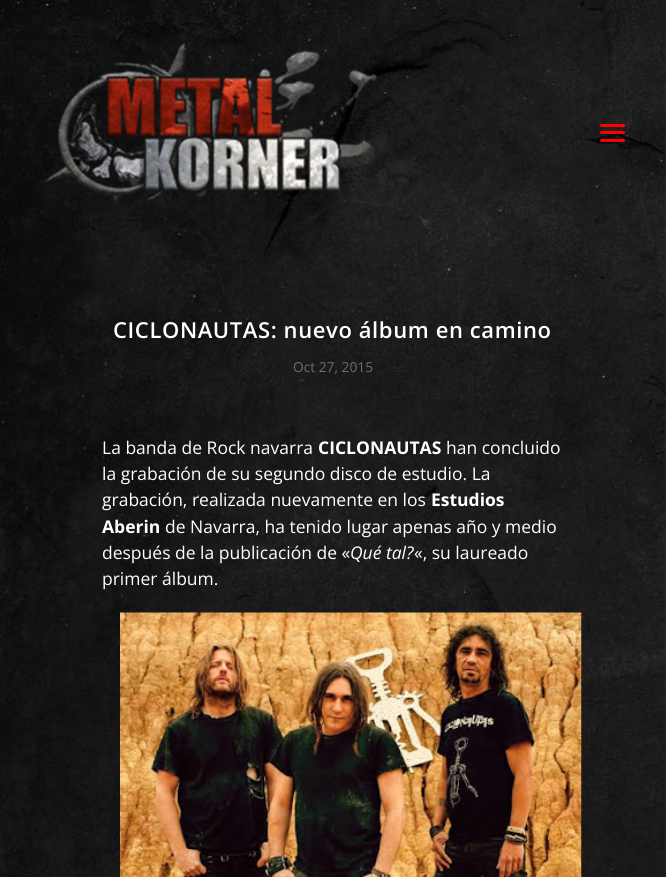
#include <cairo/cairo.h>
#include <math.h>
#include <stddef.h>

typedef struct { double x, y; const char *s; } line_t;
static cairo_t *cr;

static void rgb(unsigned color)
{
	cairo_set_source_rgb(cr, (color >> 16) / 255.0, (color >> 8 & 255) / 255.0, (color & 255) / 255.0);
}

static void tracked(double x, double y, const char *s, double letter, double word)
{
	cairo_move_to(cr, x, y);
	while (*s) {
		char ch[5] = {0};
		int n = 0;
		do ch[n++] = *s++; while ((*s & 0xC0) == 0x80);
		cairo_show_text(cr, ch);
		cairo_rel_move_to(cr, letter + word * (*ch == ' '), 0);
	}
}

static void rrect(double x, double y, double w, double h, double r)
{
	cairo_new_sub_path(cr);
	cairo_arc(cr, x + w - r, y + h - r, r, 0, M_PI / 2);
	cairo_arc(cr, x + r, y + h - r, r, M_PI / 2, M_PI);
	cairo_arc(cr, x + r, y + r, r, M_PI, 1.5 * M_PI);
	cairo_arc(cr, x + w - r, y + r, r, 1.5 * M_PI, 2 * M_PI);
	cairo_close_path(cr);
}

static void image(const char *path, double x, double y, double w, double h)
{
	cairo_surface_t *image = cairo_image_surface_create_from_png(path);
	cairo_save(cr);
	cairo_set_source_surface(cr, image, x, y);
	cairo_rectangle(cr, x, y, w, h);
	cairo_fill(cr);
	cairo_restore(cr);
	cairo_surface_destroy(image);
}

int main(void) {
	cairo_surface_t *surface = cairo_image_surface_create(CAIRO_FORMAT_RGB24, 666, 877);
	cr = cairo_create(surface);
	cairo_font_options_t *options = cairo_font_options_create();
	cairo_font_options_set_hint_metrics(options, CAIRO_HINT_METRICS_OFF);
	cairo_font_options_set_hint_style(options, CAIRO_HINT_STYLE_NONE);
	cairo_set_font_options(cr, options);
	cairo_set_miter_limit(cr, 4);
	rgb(0xffffff);
	cairo_paint(cr);
	image("img/1.png", 0, 0, 666, 877);
	image("img/2.png", 44, 42, 333, 161);
	rgb(0xff0000);
	rrect(600, 124, 25, 3, 1.5);
	cairo_fill(cr);
	rrect(600, 131, 25, 3, 1.5);
	cairo_fill(cr);
	rrect(600, 139, 25, 3, 1.5);
	cairo_fill(cr);
	image("img/3.png", 120, 612, 462, 265);
	cairo_select_font_face(cr, "Open Sans SemiBold", CAIRO_FONT_SLANT_NORMAL, CAIRO_FONT_WEIGHT_NORMAL);
	cairo_set_font_size(cr, 22);
	rgb(0xffffff);
	tracked(113, 338, "CICLONAUTAS: nuevo álbum en camino", 0.6, 0);
	cairo_select_font_face(cr, "Open Sans", CAIRO_FONT_SLANT_NORMAL, CAIRO_FONT_WEIGHT_NORMAL);
	cairo_set_font_size(cr, 13.75);
	rgb(0x6d6d6d);
	cairo_move_to(cr, 293, 372);
	cairo_show_text(cr, "Oct 27, 2015");
	cairo_set_font_size(cr, 17.5);
	rgb(0xffffff);
	cairo_move_to(cr, 102, 454);
	cairo_show_text(cr, "La banda de Rock navarra");
	cairo_select_font_face(cr, "Open Sans", CAIRO_FONT_SLANT_NORMAL, CAIRO_FONT_WEIGHT_BOLD);
	cairo_move_to(cr, 318, 454);
	cairo_show_text(cr, "CICLONAUTAS");
	cairo_select_font_face(cr, "Open Sans", CAIRO_FONT_SLANT_NORMAL, CAIRO_FONT_WEIGHT_NORMAL);
	{
		static const line_t items[] = {
			{446, 454, "han concluido"},
			{102, 480, "la grabación de su segundo disco de estudio. La"},
			{102, 506, "grabación, realizada nuevamente en los"},
		};
		for (size_t i = 0; i < sizeof items / sizeof *items; i++) {
			cairo_move_to(cr, items[i].x, items[i].y);
			cairo_show_text(cr, items[i].s);
		}
	}
	cairo_select_font_face(cr, "Open Sans", CAIRO_FONT_SLANT_NORMAL, CAIRO_FONT_WEIGHT_BOLD);
	cairo_move_to(cr, 431, 506);
	cairo_show_text(cr, "Estudios");
	cairo_move_to(cr, 102, 533);
	cairo_show_text(cr, "Aberin");
	cairo_select_font_face(cr, "Open Sans", CAIRO_FONT_SLANT_NORMAL, CAIRO_FONT_WEIGHT_NORMAL);
	cairo_move_to(cr, 165, 533);
	cairo_show_text(cr, "de Navarra, ha tenido lugar apenas año y medio");
	cairo_move_to(cr, 102, 559);
	cairo_show_text(cr, "después de la publicación de «");
	cairo_select_font_face(cr, "Open Sans", CAIRO_FONT_SLANT_ITALIC, CAIRO_FONT_WEIGHT_NORMAL);
	cairo_move_to(cr, 350, 559);
	cairo_show_text(cr, "Qué tal?");
	cairo_select_font_face(cr, "Open Sans", CAIRO_FONT_SLANT_NORMAL, CAIRO_FONT_WEIGHT_NORMAL);
	cairo_move_to(cr, 414, 559);
	cairo_show_text(cr, "«, su laureado");
	cairo_move_to(cr, 102, 585);
	cairo_show_text(cr, "primer álbum.");
	cairo_surface_write_to_png(surface, "page.png");
	cairo_font_options_destroy(options);
	cairo_destroy(cr);
	cairo_surface_destroy(surface);
	return 0;
}
